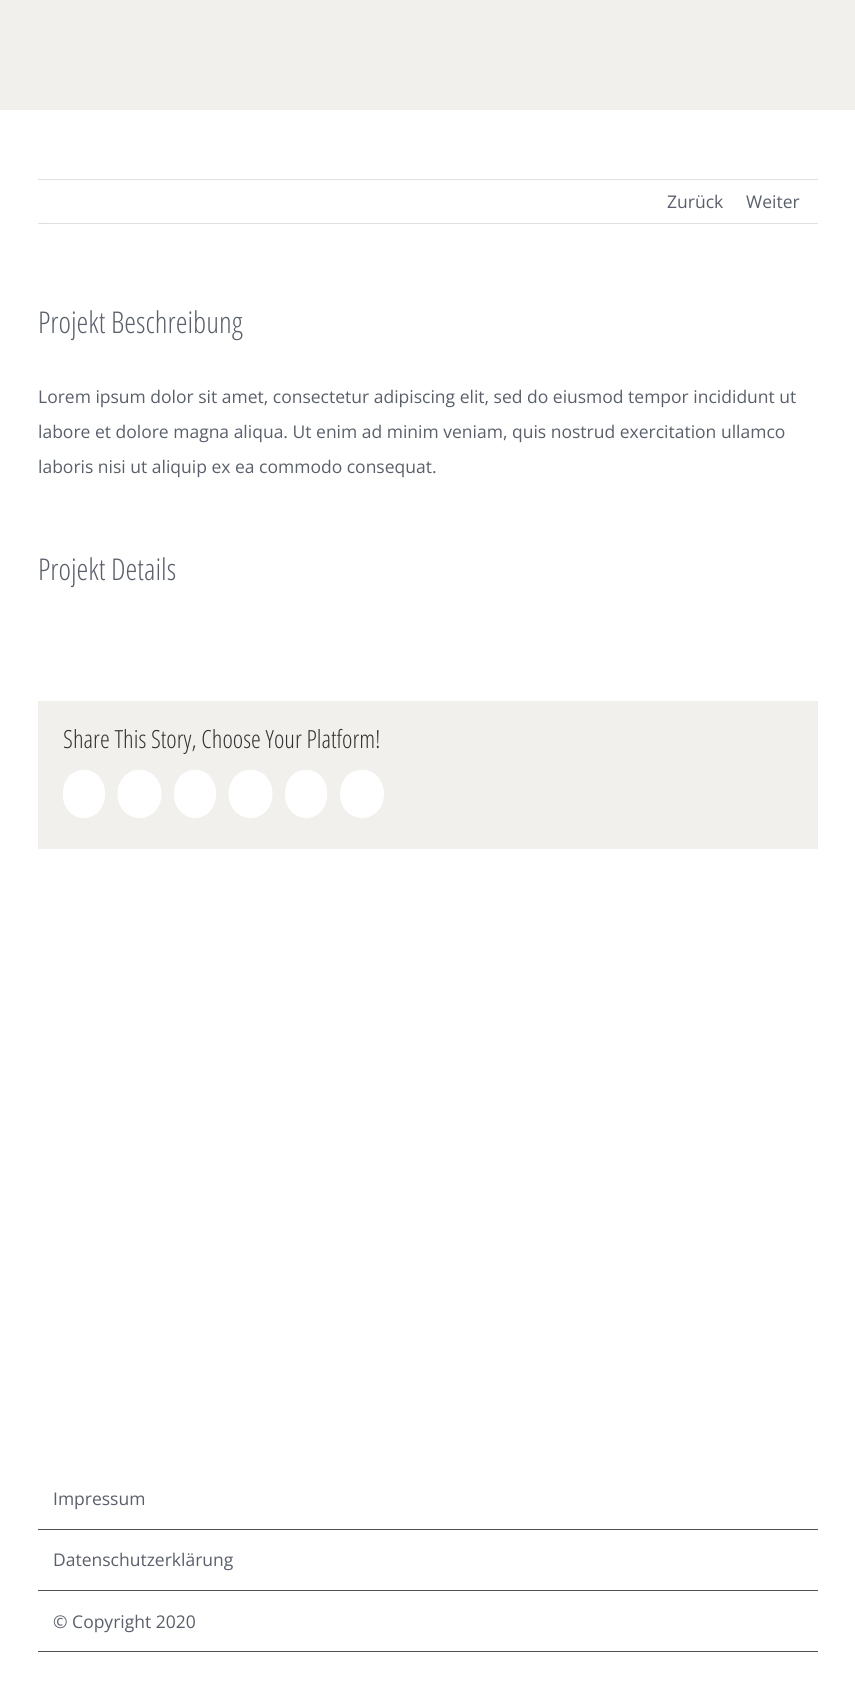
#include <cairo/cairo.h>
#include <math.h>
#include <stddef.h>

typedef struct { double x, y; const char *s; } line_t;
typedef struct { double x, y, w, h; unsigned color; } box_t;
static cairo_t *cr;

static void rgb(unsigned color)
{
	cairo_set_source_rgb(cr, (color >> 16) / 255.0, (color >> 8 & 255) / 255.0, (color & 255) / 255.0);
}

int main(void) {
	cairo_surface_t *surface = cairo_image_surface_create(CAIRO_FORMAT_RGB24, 855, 1700);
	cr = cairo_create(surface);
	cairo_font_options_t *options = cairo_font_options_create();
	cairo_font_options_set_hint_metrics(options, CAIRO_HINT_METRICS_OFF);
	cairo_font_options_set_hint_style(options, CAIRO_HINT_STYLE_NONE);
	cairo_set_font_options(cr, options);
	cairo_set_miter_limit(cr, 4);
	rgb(0xffffff);
	cairo_paint(cr);
	{
		static const box_t items[] = {
			{0, 0, 855, 110, 0xf1f0ec},
			{38, 179, 780, 1, 0xe0dede},
			{38, 223, 780, 1, 0xe0dede},
			{38, 701, 780, 148, 0xf1f0ec},
		};
		for (size_t i = 0; i < sizeof items / sizeof *items; i++) {
			rgb(items[i].color);
			cairo_rectangle(cr, items[i].x, items[i].y, items[i].w, items[i].h);
			cairo_fill(cr);
		}
	}
	rgb(0xffffff);
	cairo_new_path(cr);
	cairo_move_to(cr, 84, 770);
	cairo_curve_to(cr, 95.5, 770, 105, 780.5, 105, 794);
	cairo_curve_to(cr, 105, 807.5, 95.5, 818, 84, 818);
	cairo_curve_to(cr, 72.5, 818, 63, 807.5, 63, 794);
	cairo_curve_to(cr, 63, 780.5, 72.5, 770, 84, 770);
	cairo_close_path(cr);
	cairo_fill(cr);
	cairo_save(cr);
	cairo_rectangle(cr, 63, 764, 730, 60);
	cairo_clip(cr);
	cairo_new_path(cr);
	cairo_move_to(cr, 84, 770.5);
	cairo_curve_to(cr, 111, 770.5, 111, 817, 84, 817);
	cairo_curve_to(cr, 56.5, 817, 56.5, 770.5, 84, 770.5);
	cairo_close_path(cr);
	cairo_set_line_width(cr, 1.2);
	cairo_stroke(cr);
	cairo_restore(cr);
	cairo_new_path(cr);
	cairo_move_to(cr, 139.5, 770);
	cairo_curve_to(cr, 151.5, 770, 161.5, 780.5, 161.5, 794);
	cairo_curve_to(cr, 161.5, 807.5, 151.5, 818, 139.5, 818);
	cairo_curve_to(cr, 127.5, 818, 117.5, 807.5, 117.5, 794);
	cairo_curve_to(cr, 117.5, 780.5, 127.5, 770, 139.5, 770);
	cairo_close_path(cr);
	cairo_fill(cr);
	cairo_new_path(cr);
	cairo_move_to(cr, 139.5, 770.5);
	cairo_curve_to(cr, 167.5, 770.5, 167.5, 817, 139.5, 817);
	cairo_curve_to(cr, 111.5, 817, 111.5, 770.5, 139.5, 770.5);
	cairo_close_path(cr);
	cairo_set_line_width(cr, 1.2);
	cairo_stroke(cr);
	cairo_new_path(cr);
	cairo_move_to(cr, 195, 770);
	cairo_curve_to(cr, 206.5, 770, 216, 780.5, 216, 794);
	cairo_curve_to(cr, 216, 807.5, 206.5, 818, 195, 818);
	cairo_curve_to(cr, 183.5, 818, 174, 807.5, 174, 794);
	cairo_curve_to(cr, 174, 780.5, 183.5, 770, 195, 770);
	cairo_close_path(cr);
	cairo_fill(cr);
	cairo_new_path(cr);
	cairo_move_to(cr, 195, 770.5);
	cairo_curve_to(cr, 222, 770.5, 222, 817, 195, 817);
	cairo_curve_to(cr, 168, 817, 168, 770.5, 195, 770.5);
	cairo_close_path(cr);
	cairo_stroke(cr);
	cairo_new_path(cr);
	cairo_move_to(cr, 250.5, 770);
	cairo_curve_to(cr, 262.5, 770, 272.5, 780.5, 272.5, 794);
	cairo_curve_to(cr, 272.5, 807.5, 262.5, 818, 250.5, 818);
	cairo_curve_to(cr, 238.5, 818, 228.5, 807.5, 228.5, 794);
	cairo_curve_to(cr, 228.5, 780.5, 238.5, 770, 250.5, 770);
	cairo_close_path(cr);
	cairo_fill(cr);
	cairo_new_path(cr);
	cairo_move_to(cr, 250.5, 770.5);
	cairo_curve_to(cr, 278.5, 770.5, 278.5, 817, 250.5, 817);
	cairo_curve_to(cr, 222.5, 817, 222.5, 770.5, 250.5, 770.5);
	cairo_close_path(cr);
	cairo_stroke(cr);
	cairo_new_path(cr);
	cairo_move_to(cr, 306, 770);
	cairo_curve_to(cr, 317.5, 770, 327, 780.5, 327, 794);
	cairo_curve_to(cr, 327, 807.5, 317.5, 818, 306, 818);
	cairo_curve_to(cr, 294.5, 818, 285, 807.5, 285, 794);
	cairo_curve_to(cr, 285, 780.5, 294.5, 770, 306, 770);
	cairo_close_path(cr);
	cairo_fill(cr);
	cairo_new_path(cr);
	cairo_move_to(cr, 306, 770.5);
	cairo_curve_to(cr, 333.5, 770.5, 333.5, 817, 306, 817);
	cairo_curve_to(cr, 279, 817, 279, 770.5, 306, 770.5);
	cairo_close_path(cr);
	cairo_stroke(cr);
	cairo_new_path(cr);
	cairo_move_to(cr, 362, 770);
	cairo_curve_to(cr, 374, 770, 384, 780.5, 384, 794);
	cairo_curve_to(cr, 384, 807.5, 374, 818, 362, 818);
	cairo_curve_to(cr, 350, 818, 340, 807.5, 340, 794);
	cairo_curve_to(cr, 340, 780.5, 350, 770, 362, 770);
	cairo_close_path(cr);
	cairo_fill(cr);
	cairo_new_path(cr);
	cairo_move_to(cr, 362, 770.5);
	cairo_curve_to(cr, 390, 770.5, 390, 817, 362, 817);
	cairo_curve_to(cr, 334, 817, 334, 770.5, 362, 770.5);
	cairo_close_path(cr);
	cairo_stroke(cr);
	{
		static const box_t items[] = {
			{38, 1529, 780, 1, 0x505152},
			{38, 1590, 780, 1, 0x505152},
			{38, 1651, 780, 1, 0x505152},
		};
		for (size_t i = 0; i < sizeof items / sizeof *items; i++) {
			rgb(items[i].color);
			cairo_rectangle(cr, items[i].x, items[i].y, items[i].w, items[i].h);
			cairo_fill(cr);
		}
	}
	cairo_select_font_face(cr, "Open Sans", CAIRO_FONT_SLANT_NORMAL, CAIRO_FONT_WEIGHT_NORMAL);
	cairo_set_font_size(cr, 17.5);
	rgb(0x595f6b);
	cairo_move_to(cr, 667, 208);
	cairo_show_text(cr, "Zurück");
	cairo_move_to(cr, 746, 208);
	cairo_show_text(cr, "Weiter");
	cairo_select_font_face(cr, "Open Sans Condensed Light", CAIRO_FONT_SLANT_NORMAL, CAIRO_FONT_WEIGHT_NORMAL);
	cairo_set_font_size(cr, 30);
	cairo_move_to(cr, 38, 333);
	cairo_show_text(cr, "Projekt Beschreibung");
	cairo_select_font_face(cr, "Open Sans", CAIRO_FONT_SLANT_NORMAL, CAIRO_FONT_WEIGHT_NORMAL);
	cairo_set_font_size(cr, 17.5);
	{
		static const line_t items[] = {
			{38, 403, "Lorem ipsum dolor sit amet, consectetur adipiscing elit, sed do eiusmod tempor incididunt ut"},
			{38, 438, "labore et dolore magna aliqua. Ut enim ad minim veniam, quis nostrud exercitation ullamco"},
			{38, 473, "laboris nisi ut aliquip ex ea commodo consequat."},
		};
		for (size_t i = 0; i < sizeof items / sizeof *items; i++) {
			cairo_move_to(cr, items[i].x, items[i].y);
			cairo_show_text(cr, items[i].s);
		}
	}
	cairo_select_font_face(cr, "Open Sans Condensed Light", CAIRO_FONT_SLANT_NORMAL, CAIRO_FONT_WEIGHT_NORMAL);
	cairo_set_font_size(cr, 30);
	cairo_move_to(cr, 38, 580);
	cairo_show_text(cr, "Projekt Details");
	cairo_set_font_size(cr, 25);
	rgb(0x333333);
	cairo_move_to(cr, 63, 748);
	cairo_show_text(cr, "Share This Story, Choose Your Platform!");
	cairo_select_font_face(cr, "Open Sans", CAIRO_FONT_SLANT_NORMAL, CAIRO_FONT_WEIGHT_NORMAL);
	cairo_set_font_size(cr, 17.5);
	rgb(0x595f6b);
	{
		static const line_t items[] = {
			{53, 1505, "Impressum"},
			{53, 1566, "Datenschutzerklärung"},
			{53, 1628, "© Copyright 2020"},
		};
		for (size_t i = 0; i < sizeof items / sizeof *items; i++) {
			cairo_move_to(cr, items[i].x, items[i].y);
			cairo_show_text(cr, items[i].s);
		}
	}
	cairo_surface_write_to_png(surface, "page.png");
	cairo_font_options_destroy(options);
	cairo_destroy(cr);
	cairo_surface_destroy(surface);
	return 0;
}
